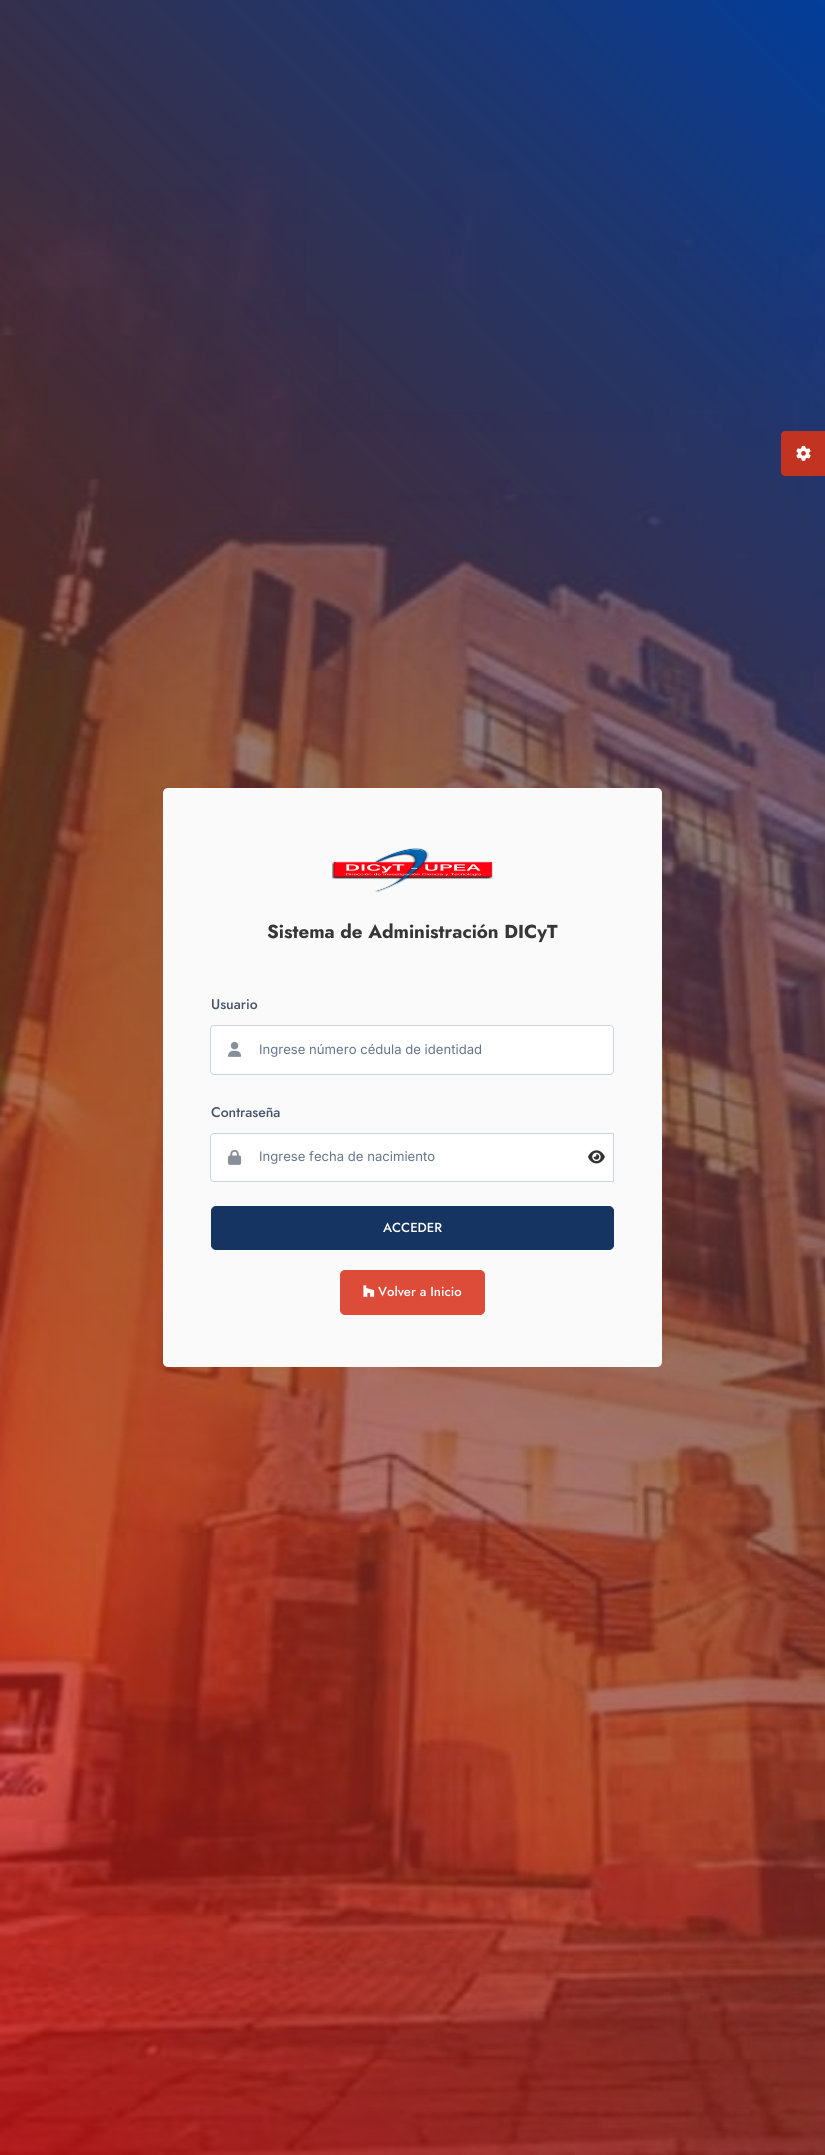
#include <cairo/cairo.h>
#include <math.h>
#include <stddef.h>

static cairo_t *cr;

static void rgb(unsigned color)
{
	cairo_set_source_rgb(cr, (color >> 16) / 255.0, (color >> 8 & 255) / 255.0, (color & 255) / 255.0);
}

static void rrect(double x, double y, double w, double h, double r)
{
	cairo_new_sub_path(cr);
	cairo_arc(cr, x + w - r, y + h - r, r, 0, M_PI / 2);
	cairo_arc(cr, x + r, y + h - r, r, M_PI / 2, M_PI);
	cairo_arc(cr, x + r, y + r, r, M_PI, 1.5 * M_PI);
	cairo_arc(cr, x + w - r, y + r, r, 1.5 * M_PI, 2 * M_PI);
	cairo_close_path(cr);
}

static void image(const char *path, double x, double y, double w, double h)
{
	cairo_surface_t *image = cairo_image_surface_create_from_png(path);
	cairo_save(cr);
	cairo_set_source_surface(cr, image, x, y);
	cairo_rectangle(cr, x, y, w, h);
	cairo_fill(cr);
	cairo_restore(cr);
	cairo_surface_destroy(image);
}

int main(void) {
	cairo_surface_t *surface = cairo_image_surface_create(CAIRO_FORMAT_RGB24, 825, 2155);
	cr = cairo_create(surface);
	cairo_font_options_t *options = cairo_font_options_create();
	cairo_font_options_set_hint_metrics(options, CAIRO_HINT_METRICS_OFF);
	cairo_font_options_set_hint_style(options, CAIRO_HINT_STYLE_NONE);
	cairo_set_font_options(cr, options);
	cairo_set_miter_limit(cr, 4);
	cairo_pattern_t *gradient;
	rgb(0xffffff);
	cairo_paint(cr);
	gradient = cairo_pattern_create_linear(-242, 1253, 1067, 902);
	cairo_pattern_add_color_stop_rgba(gradient, 0, 0.239, 0.294, 0.376, 1);
	cairo_pattern_add_color_stop_rgba(gradient, 1, 0.247, 0.325, 0.49, 1);
	cairo_set_source(cr, gradient);
	cairo_pattern_destroy(gradient);
	cairo_rectangle(cr, 0, 0, 825, 2155);
	cairo_fill(cr);
	gradient = cairo_pattern_create_linear(-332, 1823, 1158, 332);
	cairo_pattern_add_color_stop_rgba(gradient, 0, 0.902, 0.09, 0.09, 1);
	cairo_pattern_add_color_stop_rgba(gradient, 0.5, 0.522, 0.188, 0.063, 0.7);
	cairo_pattern_add_color_stop_rgba(gradient, 1, 0, 0.341, 0.851, 1);
	cairo_set_source(cr, gradient);
	cairo_pattern_destroy(gradient);
	cairo_rectangle(cr, 0, 0, 825, 2155);
	cairo_fill(cr);
	image("img/2.png", 0, 0, 825, 2155);
	rgb(0xc23321);
	cairo_new_path(cr);
	cairo_move_to(cr, 785, 431);
	cairo_line_to(cr, 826, 431);
	cairo_line_to(cr, 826, 476);
	cairo_line_to(cr, 785, 476);
	cairo_curve_to(cr, 783, 476, 781, 474, 781, 472);
	cairo_line_to(cr, 781, 435);
	cairo_curve_to(cr, 781, 433, 783, 431, 785, 431);
	cairo_close_path(cr);
	cairo_fill(cr);
	image("img/1.png", 796, 445, 15, 16);
	rgb(0xfafafa);
	rrect(163, 788, 499, 579, 5);
	cairo_fill(cr);
	image("img/3.png", 332, 848, 161, 45);
	rgb(0xffffff);
	rrect(210.5, 1025.5, 403, 49, 3.5);
	cairo_fill_preserve(cr);
	rgb(0xcbd5e1);
	cairo_set_line_width(cr, 1);
	cairo_stroke(cr);
	image("img/4.png", 228, 1041, 14, 16);
	rgb(0xffffff);
	cairo_new_path(cr);
	cairo_move_to(cr, 214, 1133.5);
	cairo_line_to(cr, 613.5, 1133.5);
	cairo_line_to(cr, 613.5, 1181.5);
	cairo_line_to(cr, 214, 1181.5);
	cairo_curve_to(cr, 212, 1181.5, 210.5, 1180, 210.5, 1178);
	cairo_line_to(cr, 210.5, 1137);
	cairo_curve_to(cr, 210.5, 1135, 212, 1133.5, 214, 1133.5);
	cairo_close_path(cr);
	cairo_fill_preserve(cr);
	rgb(0xcbd5e1);
	cairo_stroke(cr);
	image("img/5.png", 228, 1149, 14, 16);
	image("img/6.png", 588, 1150, 17, 14);
	rgb(0x153462);
	rrect(211.5, 1206.5, 402, 43, 4.5);
	cairo_fill_preserve(cr);
	cairo_stroke(cr);
	rgb(0xdd4b39);
	rrect(340.5, 1270.5, 144, 44, 4.5);
	cairo_fill_preserve(cr);
	cairo_stroke(cr);
	image("img/7.png", 363, 1285, 12, 12);
	cairo_select_font_face(cr, "Jost", CAIRO_FONT_SLANT_NORMAL, CAIRO_FONT_WEIGHT_BOLD);
	cairo_set_font_size(cr, 18.75);
	rgb(0x363636);
	cairo_move_to(cr, 267, 938);
	cairo_show_text(cr, "Sistema de Administración DICyT");
	cairo_select_font_face(cr, "Jost Medium", CAIRO_FONT_SLANT_NORMAL, CAIRO_FONT_WEIGHT_NORMAL);
	cairo_set_font_size(cr, 14);
	rgb(0x475569);
	cairo_move_to(cr, 211, 1009);
	cairo_show_text(cr, "Usuario");
	cairo_select_font_face(cr, "Inter", CAIRO_FONT_SLANT_NORMAL, CAIRO_FONT_WEIGHT_NORMAL);
	cairo_set_font_size(cr, 13.1);
	rgb(0x64748b);
	cairo_move_to(cr, 259, 1054);
	cairo_show_text(cr, "Ingrese número cédula de identidad");
	cairo_select_font_face(cr, "Jost Medium", CAIRO_FONT_SLANT_NORMAL, CAIRO_FONT_WEIGHT_NORMAL);
	cairo_set_font_size(cr, 14);
	rgb(0x475569);
	cairo_move_to(cr, 211, 1117);
	cairo_show_text(cr, "Contraseña");
	cairo_select_font_face(cr, "Inter", CAIRO_FONT_SLANT_NORMAL, CAIRO_FONT_WEIGHT_NORMAL);
	cairo_set_font_size(cr, 13.1);
	rgb(0x64748b);
	cairo_move_to(cr, 259, 1161);
	cairo_show_text(cr, "Ingrese fecha de nacimiento");
	cairo_select_font_face(cr, "Jost Medium", CAIRO_FONT_SLANT_NORMAL, CAIRO_FONT_WEIGHT_NORMAL);
	rgb(0xffffff);
	cairo_move_to(cr, 383, 1232);
	cairo_show_text(cr, "ACCEDER");
	cairo_move_to(cr, 378, 1296);
	cairo_show_text(cr, "Volver a Inicio");
	cairo_surface_write_to_png(surface, "page.png");
	cairo_font_options_destroy(options);
	cairo_destroy(cr);
	cairo_surface_destroy(surface);
	return 0;
}
